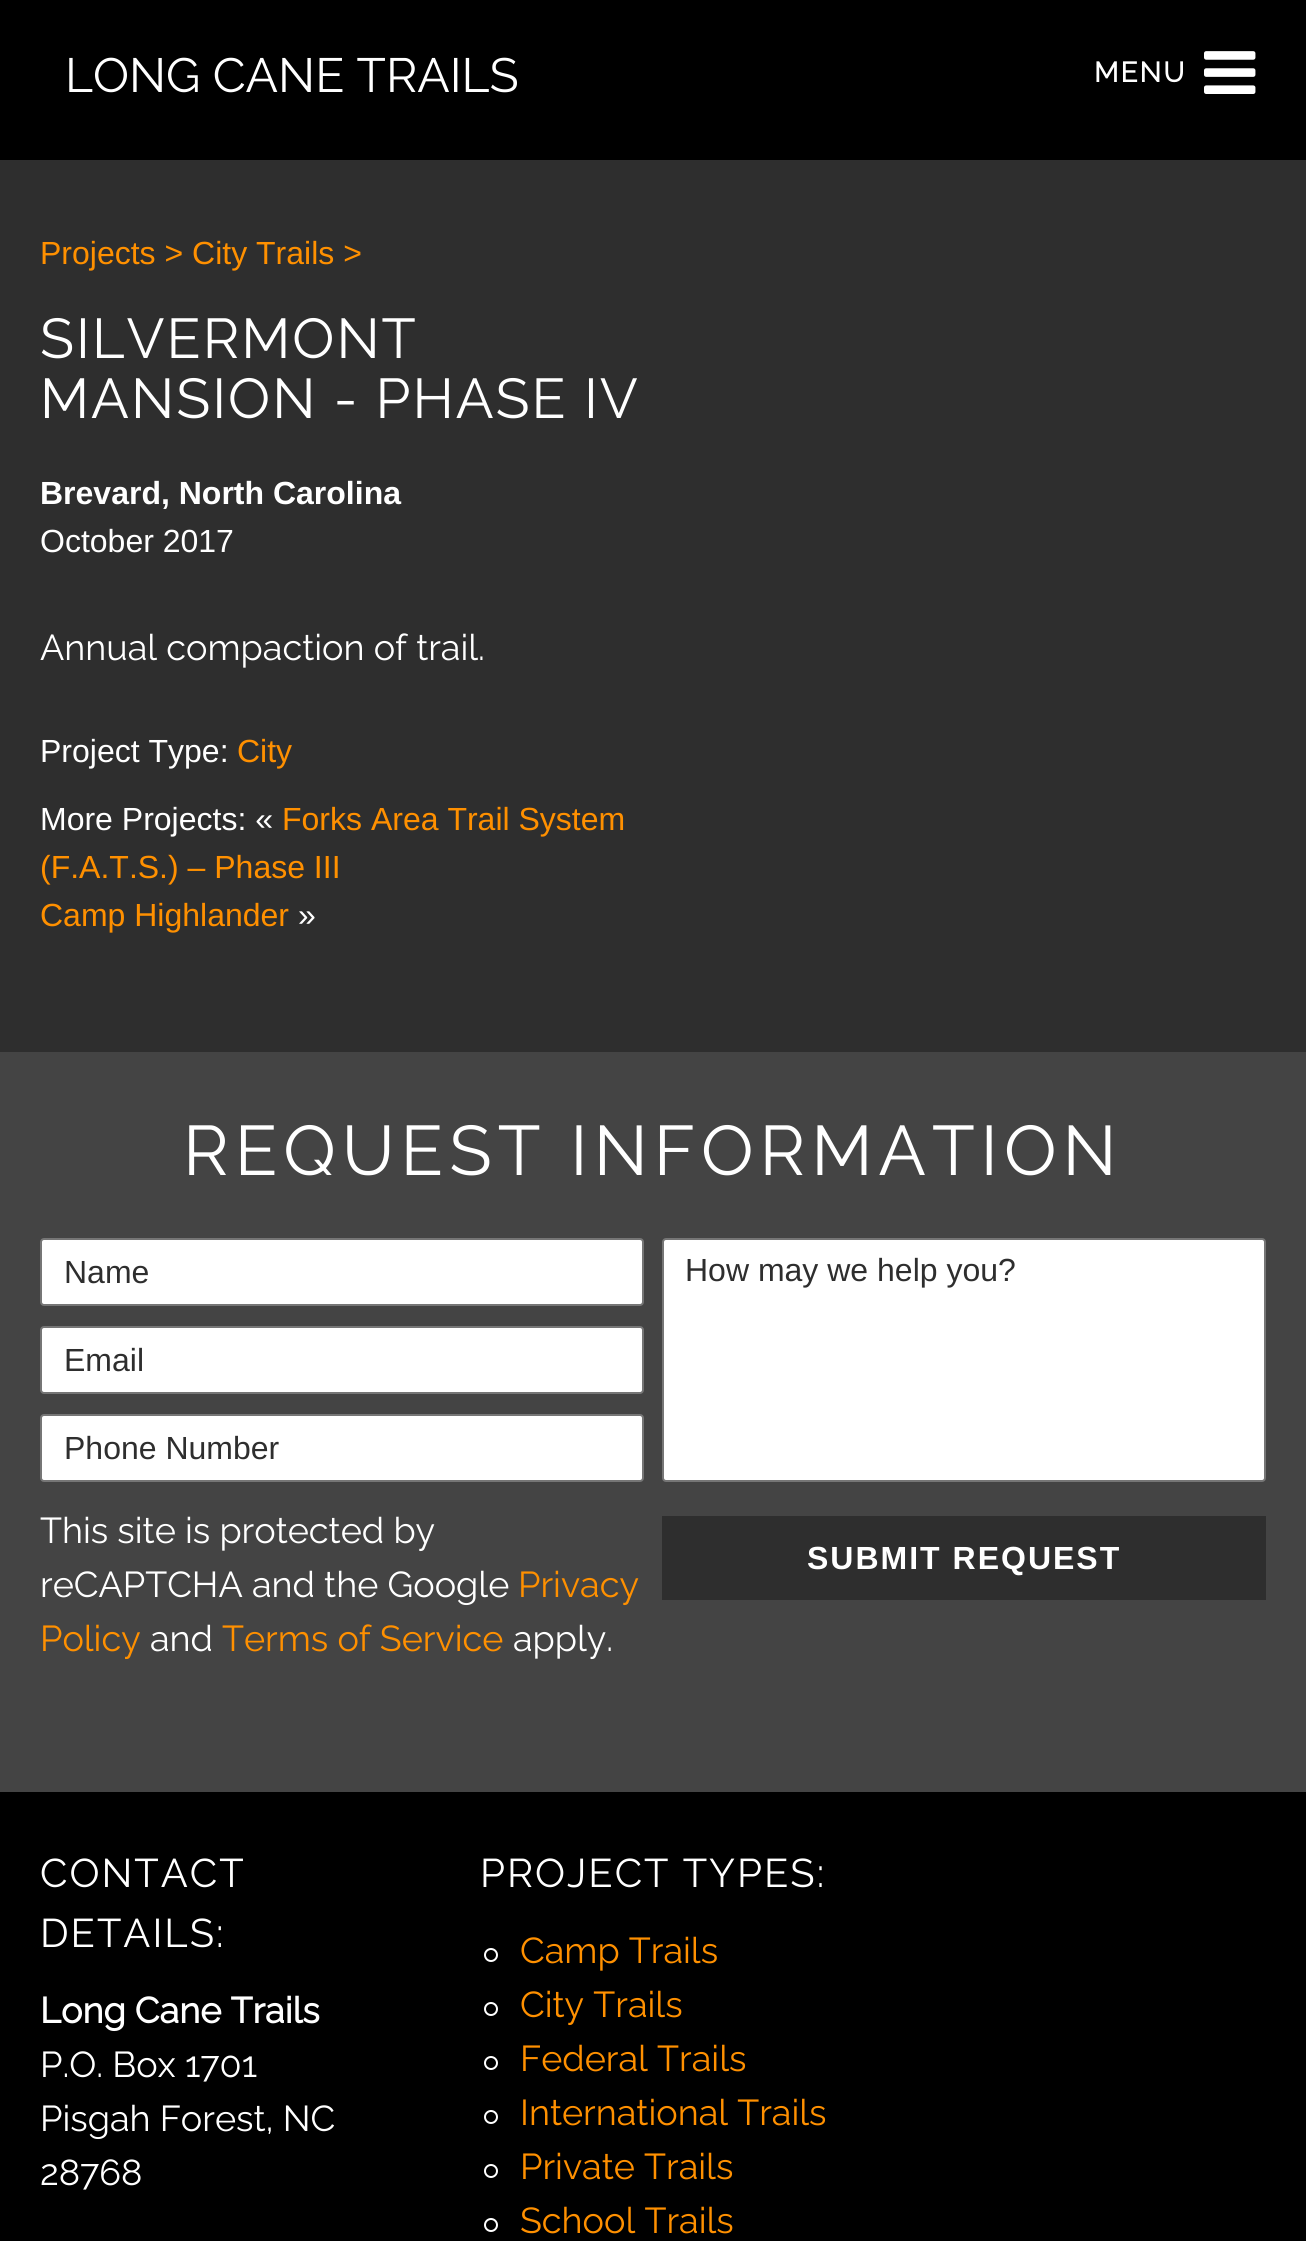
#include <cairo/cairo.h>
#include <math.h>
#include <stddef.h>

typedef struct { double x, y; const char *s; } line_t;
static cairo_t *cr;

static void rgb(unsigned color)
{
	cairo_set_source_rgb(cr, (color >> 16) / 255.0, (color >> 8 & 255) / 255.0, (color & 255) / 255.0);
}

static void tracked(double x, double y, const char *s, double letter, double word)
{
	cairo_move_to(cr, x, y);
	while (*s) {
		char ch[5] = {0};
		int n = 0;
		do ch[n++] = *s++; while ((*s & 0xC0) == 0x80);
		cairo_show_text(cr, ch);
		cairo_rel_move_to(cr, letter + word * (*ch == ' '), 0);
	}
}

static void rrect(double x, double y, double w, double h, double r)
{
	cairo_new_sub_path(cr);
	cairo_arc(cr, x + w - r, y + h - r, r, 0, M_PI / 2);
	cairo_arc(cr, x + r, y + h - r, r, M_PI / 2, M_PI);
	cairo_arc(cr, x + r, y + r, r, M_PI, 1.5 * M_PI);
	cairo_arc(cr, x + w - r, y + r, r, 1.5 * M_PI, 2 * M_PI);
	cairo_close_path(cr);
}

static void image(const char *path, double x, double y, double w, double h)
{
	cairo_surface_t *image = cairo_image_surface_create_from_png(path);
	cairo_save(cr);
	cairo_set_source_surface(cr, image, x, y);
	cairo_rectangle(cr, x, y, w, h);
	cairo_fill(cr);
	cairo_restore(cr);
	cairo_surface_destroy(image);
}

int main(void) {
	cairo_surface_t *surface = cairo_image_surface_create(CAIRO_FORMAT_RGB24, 1306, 2241);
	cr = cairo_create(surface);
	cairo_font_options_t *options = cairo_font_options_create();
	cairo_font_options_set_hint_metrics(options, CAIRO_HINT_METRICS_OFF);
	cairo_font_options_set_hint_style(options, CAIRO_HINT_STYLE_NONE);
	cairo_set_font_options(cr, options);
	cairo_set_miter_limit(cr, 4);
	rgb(0x2e2e2e);
	cairo_paint(cr);
	rgb(0x000000);
	cairo_rectangle(cr, 0, 0, 1306, 160);
	cairo_fill(cr);
	image("img/1.png", 1204, 51, 52, 43);
	rgb(0x444444);
	cairo_rectangle(cr, 0, 1052, 1306, 740);
	cairo_fill(cr);
	rgb(0xffffff);
	rrect(41, 1239, 602, 66, 3);
	cairo_fill_preserve(cr);
	rgb(0x767676);
	cairo_stroke(cr);
	rgb(0xffffff);
	rrect(41, 1327, 602, 66, 3);
	cairo_fill_preserve(cr);
	rgb(0x767676);
	cairo_stroke(cr);
	rgb(0xffffff);
	rrect(41, 1415, 602, 66, 3);
	cairo_fill_preserve(cr);
	rgb(0x767676);
	cairo_stroke(cr);
	rgb(0xffffff);
	rrect(663, 1239, 602, 242, 3);
	cairo_fill_preserve(cr);
	rgb(0x767676);
	cairo_stroke(cr);
	rgb(0x2e2e2e);
	cairo_rectangle(cr, 662, 1516, 604, 84);
	cairo_fill(cr);
	rgb(0x000000);
	cairo_rectangle(cr, 0, 1792, 1306, 449);
	cairo_fill(cr);
	cairo_arc(cr, 491, 1955, 6, 0, 2 * M_PI);
	rgb(0xffffff);
	cairo_stroke(cr);
	cairo_arc(cr, 491, 2009, 6, 0, 2 * M_PI);
	cairo_stroke(cr);
	cairo_arc(cr, 491, 2063, 6, 0, 2 * M_PI);
	cairo_stroke(cr);
	cairo_arc(cr, 491, 2117, 6, 0, 2 * M_PI);
	cairo_stroke(cr);
	cairo_arc(cr, 491, 2171, 6, 0, 2 * M_PI);
	cairo_stroke(cr);
	cairo_arc(cr, 491, 2225, 6, 0, 2 * M_PI);
	cairo_stroke(cr);
	cairo_select_font_face(cr, "Raleway Thin", CAIRO_FONT_SLANT_NORMAL, CAIRO_FONT_WEIGHT_NORMAL);
	cairo_set_font_size(cr, 48);
	cairo_move_to(cr, 65, 92);
	cairo_show_text(cr, "LONG CANE TRAILS");
	cairo_select_font_face(cr, "Raleway", CAIRO_FONT_SLANT_NORMAL, CAIRO_FONT_WEIGHT_BOLD);
	cairo_set_font_size(cr, 28);
	tracked(1094, 82, "MENU", 2, 0);
	cairo_select_font_face(cr, "Liberation Sans", CAIRO_FONT_SLANT_NORMAL, CAIRO_FONT_WEIGHT_NORMAL);
	cairo_set_font_size(cr, 32);
	rgb(0xff9000);
	cairo_move_to(cr, 40, 264);
	cairo_show_text(cr, "Projects > City Trails >");
	cairo_select_font_face(cr, "Raleway Thin", CAIRO_FONT_SLANT_NORMAL, CAIRO_FONT_WEIGHT_NORMAL);
	cairo_set_font_size(cr, 56);
	rgb(0xffffff);
	tracked(40, 358, "SILVERMONT", 2, 0);
	tracked(40, 418, "MANSION - PHASE IV", 2, 0);
	cairo_select_font_face(cr, "Liberation Sans", CAIRO_FONT_SLANT_NORMAL, CAIRO_FONT_WEIGHT_BOLD);
	cairo_set_font_size(cr, 32);
	cairo_move_to(cr, 40, 504);
	cairo_show_text(cr, "Brevard, North Carolina");
	cairo_select_font_face(cr, "Liberation Sans", CAIRO_FONT_SLANT_NORMAL, CAIRO_FONT_WEIGHT_NORMAL);
	cairo_move_to(cr, 40, 552);
	cairo_show_text(cr, "October 2017");
	cairo_select_font_face(cr, "Raleway Thin", CAIRO_FONT_SLANT_NORMAL, CAIRO_FONT_WEIGHT_NORMAL);
	cairo_set_font_size(cr, 36);
	cairo_move_to(cr, 40, 660);
	cairo_show_text(cr, "Annual compaction of trail.");
	cairo_select_font_face(cr, "Liberation Sans", CAIRO_FONT_SLANT_NORMAL, CAIRO_FONT_WEIGHT_NORMAL);
	cairo_set_font_size(cr, 32);
	cairo_move_to(cr, 40, 762);
	cairo_show_text(cr, "Project Type:");
	rgb(0xff9000);
	cairo_move_to(cr, 237, 762);
	cairo_show_text(cr, "City");
	rgb(0xffffff);
	cairo_move_to(cr, 40, 830);
	cairo_show_text(cr, "More Projects: «");
	rgb(0xff9000);
	{
		static const line_t items[] = {
			{282, 830, "Forks Area Trail System"},
			{40, 878, "(F.A.T.S.) – Phase III"},
			{40, 926, "Camp Highlander"},
		};
		for (size_t i = 0; i < sizeof items / sizeof *items; i++) {
			cairo_move_to(cr, items[i].x, items[i].y);
			cairo_show_text(cr, items[i].s);
		}
	}
	rgb(0xffffff);
	cairo_move_to(cr, 298, 926);
	cairo_show_text(cr, "»");
	cairo_select_font_face(cr, "Raleway Thin", CAIRO_FONT_SLANT_NORMAL, CAIRO_FONT_WEIGHT_NORMAL);
	cairo_set_font_size(cr, 70);
	tracked(183, 1175, "REQUEST INFORMATION", 6, 0);
	cairo_select_font_face(cr, "Liberation Sans", CAIRO_FONT_SLANT_NORMAL, CAIRO_FONT_WEIGHT_NORMAL);
	cairo_set_font_size(cr, 32);
	rgb(0x2e2e2e);
	{
		static const line_t items[] = {
			{64, 1283, "Name"},
			{64, 1371, "Email"},
			{64, 1459, "Phone Number"},
		};
		for (size_t i = 0; i < sizeof items / sizeof *items; i++) {
			cairo_move_to(cr, items[i].x, items[i].y);
			cairo_show_text(cr, items[i].s);
		}
	}
	cairo_select_font_face(cr, "Raleway Thin", CAIRO_FONT_SLANT_NORMAL, CAIRO_FONT_WEIGHT_NORMAL);
	cairo_set_font_size(cr, 36);
	rgb(0xffffff);
	cairo_move_to(cr, 40, 1543);
	cairo_show_text(cr, "This site is protected by");
	cairo_move_to(cr, 40, 1597);
	cairo_show_text(cr, "reCAPTCHA and the Google");
	rgb(0xff9000);
	cairo_move_to(cr, 518, 1597);
	cairo_show_text(cr, "Privacy");
	cairo_move_to(cr, 40, 1651);
	cairo_show_text(cr, "Policy");
	rgb(0xffffff);
	cairo_move_to(cr, 150, 1651);
	cairo_show_text(cr, "and");
	rgb(0xff9000);
	cairo_move_to(cr, 222, 1651);
	cairo_show_text(cr, "Terms of Service");
	rgb(0xffffff);
	cairo_move_to(cr, 513, 1651);
	cairo_show_text(cr, "apply.");
	cairo_select_font_face(cr, "Liberation Sans", CAIRO_FONT_SLANT_NORMAL, CAIRO_FONT_WEIGHT_NORMAL);
	cairo_set_font_size(cr, 32);
	rgb(0x2e2e2e);
	cairo_move_to(cr, 685, 1281);
	cairo_show_text(cr, "How may we help you?");
	cairo_select_font_face(cr, "Liberation Sans", CAIRO_FONT_SLANT_NORMAL, CAIRO_FONT_WEIGHT_BOLD);
	rgb(0xffffff);
	tracked(807, 1569, "SUBMIT REQUEST", 2, 0);
	cairo_select_font_face(cr, "Raleway Thin", CAIRO_FONT_SLANT_NORMAL, CAIRO_FONT_WEIGHT_NORMAL);
	cairo_set_font_size(cr, 40);
	tracked(40, 1887, "CONTACT", 2, 0);
	tracked(40, 1947, "DETAILS:", 2, 0);
	cairo_select_font_face(cr, "Raleway", CAIRO_FONT_SLANT_NORMAL, CAIRO_FONT_WEIGHT_BOLD);
	cairo_set_font_size(cr, 36);
	cairo_move_to(cr, 40, 2023);
	cairo_show_text(cr, "Long Cane Trails");
	cairo_select_font_face(cr, "Raleway Thin", CAIRO_FONT_SLANT_NORMAL, CAIRO_FONT_WEIGHT_NORMAL);
	{
		static const line_t items[] = {
			{40, 2077, "P.O. Box 1701"},
			{40, 2131, "Pisgah Forest, NC"},
			{40, 2185, "28768"},
		};
		for (size_t i = 0; i < sizeof items / sizeof *items; i++) {
			cairo_move_to(cr, items[i].x, items[i].y);
			cairo_show_text(cr, items[i].s);
		}
	}
	cairo_set_font_size(cr, 40);
	tracked(480, 1887, "PROJECT TYPES:", 2, 0);
	cairo_set_font_size(cr, 36);
	rgb(0xff9000);
	{
		static const line_t items[] = {
			{520, 1963, "Camp Trails"},
			{520, 2017, "City Trails"},
			{520, 2071, "Federal Trails"},
			{520, 2125, "International Trails"},
			{520, 2179, "Private Trails"},
			{520, 2233, "School Trails"},
		};
		for (size_t i = 0; i < sizeof items / sizeof *items; i++) {
			cairo_move_to(cr, items[i].x, items[i].y);
			cairo_show_text(cr, items[i].s);
		}
	}
	cairo_surface_write_to_png(surface, "page.png");
	cairo_font_options_destroy(options);
	cairo_destroy(cr);
	cairo_surface_destroy(surface);
	return 0;
}
